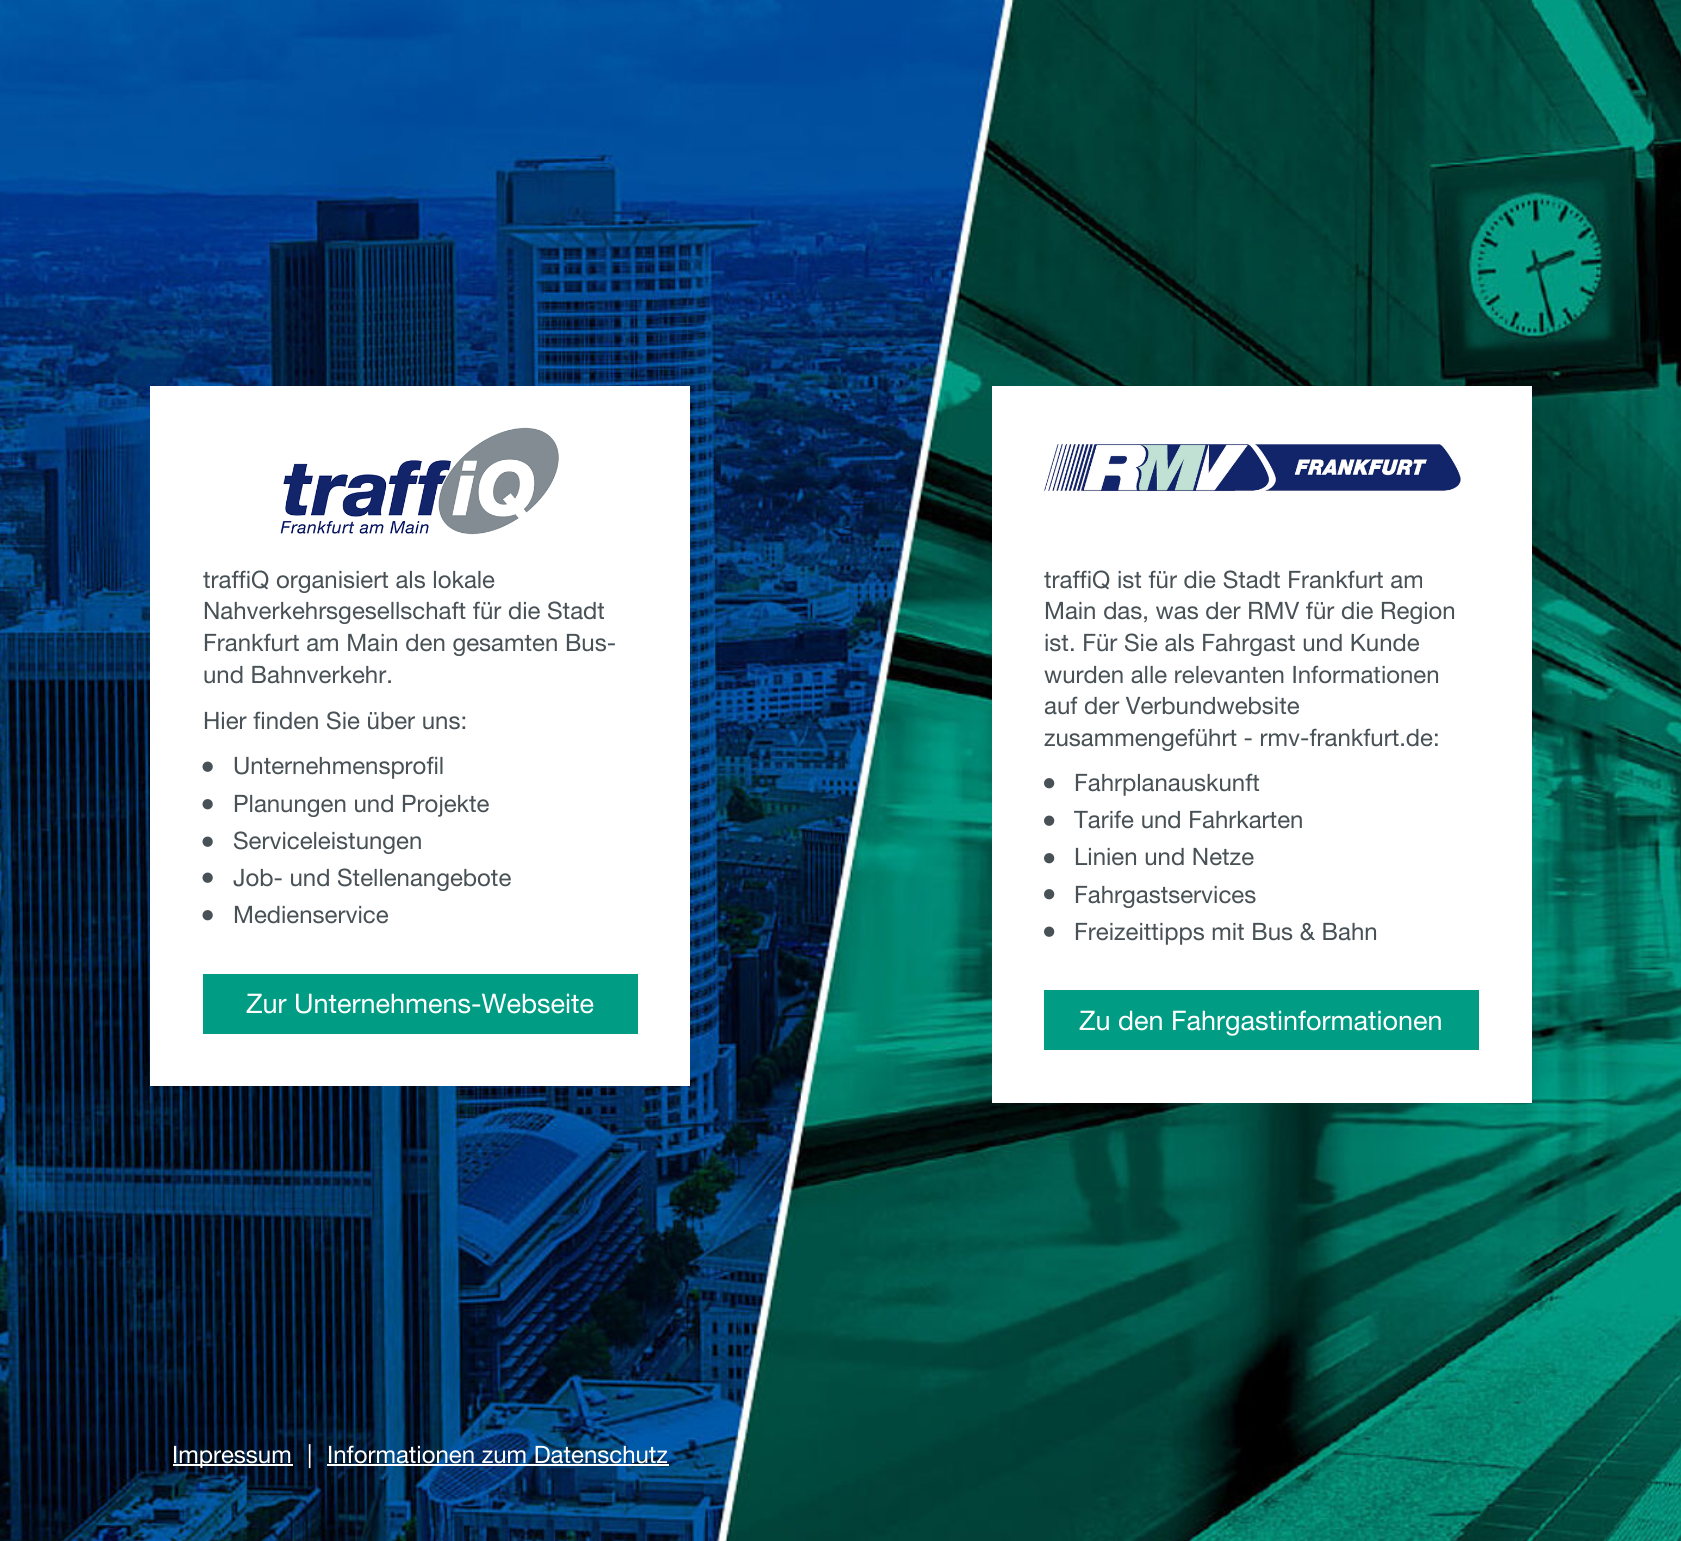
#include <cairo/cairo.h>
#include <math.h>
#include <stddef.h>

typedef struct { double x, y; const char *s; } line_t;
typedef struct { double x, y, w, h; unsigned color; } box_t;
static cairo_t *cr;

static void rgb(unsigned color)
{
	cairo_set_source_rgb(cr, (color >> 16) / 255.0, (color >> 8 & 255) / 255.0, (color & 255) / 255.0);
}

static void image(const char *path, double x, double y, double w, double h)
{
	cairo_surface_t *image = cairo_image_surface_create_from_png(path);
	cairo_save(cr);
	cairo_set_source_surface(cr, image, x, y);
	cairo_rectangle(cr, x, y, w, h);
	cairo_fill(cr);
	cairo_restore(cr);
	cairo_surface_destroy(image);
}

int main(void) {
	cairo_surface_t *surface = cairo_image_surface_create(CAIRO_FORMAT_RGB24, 1681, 1541);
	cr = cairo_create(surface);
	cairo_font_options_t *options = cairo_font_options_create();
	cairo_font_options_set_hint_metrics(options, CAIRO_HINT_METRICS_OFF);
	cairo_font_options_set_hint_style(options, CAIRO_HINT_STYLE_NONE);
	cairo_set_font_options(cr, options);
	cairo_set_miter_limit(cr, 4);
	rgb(0xffffff);
	cairo_paint(cr);
	image("img/1.png", 0, 0, 1681, 1541);
	rgb(0xffffff);
	cairo_rectangle(cr, 150, 386, 540, 700);
	cairo_fill(cr);
	image("img/2.png", 280, 427, 279, 108);
	image("img/3.png", 202, 761, 11, 11);
	image("img/4.png", 202, 799, 11, 11);
	image("img/3.png", 202, 836, 11, 11);
	image("img/3.png", 202, 872, 11, 11);
	image("img/4.png", 202, 910, 11, 11);
	{
		static const box_t items[] = {
			{203, 974, 435, 60, 0x009c84},
			{173, 1464, 120, 2, 0xffffff},
			{327, 1464, 342, 2, 0xffffff},
			{992, 386, 540, 717, 0xffffff},
		};
		for (size_t i = 0; i < sizeof items / sizeof *items; i++) {
			rgb(items[i].color);
			cairo_rectangle(cr, items[i].x, items[i].y, items[i].w, items[i].h);
			cairo_fill(cr);
		}
	}
	image("img/5.png", 1044, 444, 418, 48);
	image("img/6.png", 1044, 778, 11, 11);
	image("img/7.png", 1044, 815, 11, 11);
	image("img/6.png", 1044, 853, 11, 11);
	image("img/6.png", 1044, 889, 11, 11);
	image("img/7.png", 1044, 926, 11, 11);
	rgb(0x009c84);
	cairo_rectangle(cr, 1044, 990, 435, 60);
	cairo_fill(cr);
	cairo_select_font_face(cr, "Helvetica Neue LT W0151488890", CAIRO_FONT_SLANT_NORMAL, CAIRO_FONT_WEIGHT_NORMAL);
	cairo_set_font_size(cr, 24);
	rgb(0x485156);
	{
		static const line_t items[] = {
			{203, 588, "traffiQ organisiert als lokale"},
			{203, 619, "Nahverkehrsgesellschaft für die Stadt"},
			{203, 651, "Frankfurt am Main den gesamten Bus-"},
			{203, 683, "und Bahnverkehr."},
			{203, 729, "Hier finden Sie über uns:"},
			{233, 774, "Unternehmensprofil"},
			{233, 812, "Planungen und Projekte"},
			{233, 849, "Serviceleistungen"},
			{233, 886, "Job- und Stellenangebote"},
			{233, 923, "Medienservice"},
		};
		for (size_t i = 0; i < sizeof items / sizeof *items; i++) {
			cairo_move_to(cr, items[i].x, items[i].y);
			cairo_show_text(cr, items[i].s);
		}
	}
	cairo_set_font_size(cr, 27);
	rgb(0xffffff);
	cairo_move_to(cr, 246, 1013);
	cairo_show_text(cr, "Zur Unternehmens-Webseite");
	cairo_set_font_size(cr, 24);
	{
		static const line_t items[] = {
			{172, 1463, "Impressum"},
			{307, 1463, "|"},
			{327, 1463, "Informationen zum Datenschutz"},
		};
		for (size_t i = 0; i < sizeof items / sizeof *items; i++) {
			cairo_move_to(cr, items[i].x, items[i].y);
			cairo_show_text(cr, items[i].s);
		}
	}
	rgb(0x485156);
	{
		static const line_t items[] = {
			{1044, 588, "traffiQ ist für die Stadt Frankfurt am"},
			{1044, 619, "Main das, was der RMV für die Region"},
			{1044, 651, "ist. Für Sie als Fahrgast und Kunde"},
			{1044, 683, "wurden alle relevanten Informationen"},
			{1044, 714, "auf der Verbundwebsite"},
			{1044, 746, "zusammengeführt - rmv-frankfurt.de:"},
			{1074, 791, "Fahrplanauskunft"},
			{1074, 828, "Tarife und Fahrkarten"},
			{1074, 865, "Linien und Netze"},
			{1074, 903, "Fahrgastservices"},
			{1074, 940, "Freizeittipps mit Bus & Bahn"},
		};
		for (size_t i = 0; i < sizeof items / sizeof *items; i++) {
			cairo_move_to(cr, items[i].x, items[i].y);
			cairo_show_text(cr, items[i].s);
		}
	}
	cairo_set_font_size(cr, 27);
	rgb(0xffffff);
	cairo_move_to(cr, 1079, 1030);
	cairo_show_text(cr, "Zu den Fahrgastinformationen");
	cairo_surface_write_to_png(surface, "page.png");
	cairo_font_options_destroy(options);
	cairo_destroy(cr);
	cairo_surface_destroy(surface);
	return 0;
}
